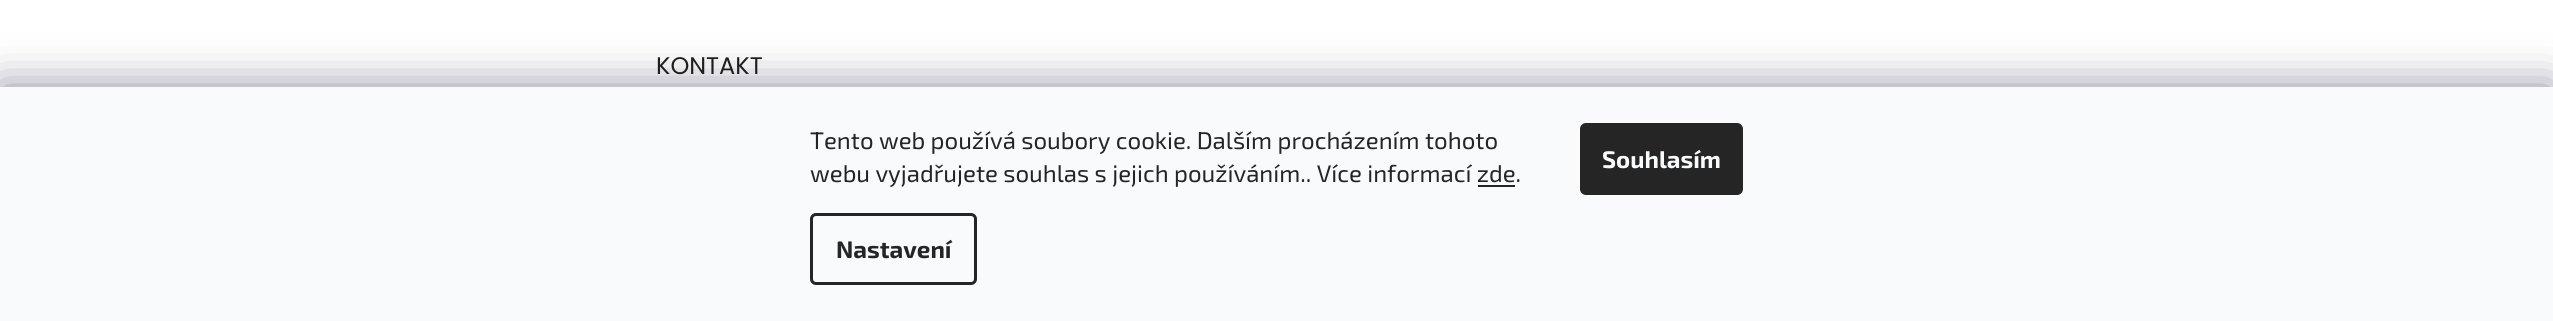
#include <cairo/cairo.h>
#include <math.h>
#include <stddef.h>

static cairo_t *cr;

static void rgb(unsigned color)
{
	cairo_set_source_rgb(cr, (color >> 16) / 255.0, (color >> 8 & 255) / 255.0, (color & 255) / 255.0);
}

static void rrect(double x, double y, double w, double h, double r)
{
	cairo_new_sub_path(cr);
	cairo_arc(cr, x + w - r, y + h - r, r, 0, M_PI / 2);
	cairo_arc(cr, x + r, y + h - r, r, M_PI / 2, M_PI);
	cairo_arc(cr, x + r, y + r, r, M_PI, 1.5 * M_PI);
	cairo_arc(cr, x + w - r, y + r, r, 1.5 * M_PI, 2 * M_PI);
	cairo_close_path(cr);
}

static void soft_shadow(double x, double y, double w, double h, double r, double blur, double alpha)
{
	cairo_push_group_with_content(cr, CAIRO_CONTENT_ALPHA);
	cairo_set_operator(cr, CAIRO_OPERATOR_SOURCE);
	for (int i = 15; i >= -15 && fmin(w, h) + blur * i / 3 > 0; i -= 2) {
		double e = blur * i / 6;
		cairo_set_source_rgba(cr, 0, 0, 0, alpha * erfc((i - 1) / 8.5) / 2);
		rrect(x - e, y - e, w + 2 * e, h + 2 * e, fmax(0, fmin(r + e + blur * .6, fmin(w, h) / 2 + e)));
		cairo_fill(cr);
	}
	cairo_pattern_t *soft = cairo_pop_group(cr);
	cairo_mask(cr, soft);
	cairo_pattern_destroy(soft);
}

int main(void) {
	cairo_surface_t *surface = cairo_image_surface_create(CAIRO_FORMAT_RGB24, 2553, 321);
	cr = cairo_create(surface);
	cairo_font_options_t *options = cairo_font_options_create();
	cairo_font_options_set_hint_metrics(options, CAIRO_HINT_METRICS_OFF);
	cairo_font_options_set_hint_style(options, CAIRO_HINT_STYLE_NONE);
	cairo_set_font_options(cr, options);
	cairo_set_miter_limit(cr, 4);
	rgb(0xffffff);
	cairo_paint(cr);
	rgb(0x1b1939);
	soft_shadow(0, 87, 2553, 234, 0, 22.5, 0.5);
	rgb(0xf8fafb);
	cairo_rectangle(cr, 0, 87, 2553, 234);
	cairo_fill(cr);
	rgb(0x252525);
	cairo_rectangle(cr, 1478, 185, 37, 2);
	cairo_fill(cr);
	rrect(811.5, 214.5, 164, 69, 4.5);
	cairo_set_line_width(cr, 3);
	cairo_stroke(cr);
	rrect(1580, 123, 163, 72, 6);
	cairo_fill(cr);
	cairo_select_font_face(cr, "Poppins", CAIRO_FONT_SLANT_NORMAL, CAIRO_FONT_WEIGHT_NORMAL);
	cairo_set_font_size(cr, 24);
	rgb(0x1f1f1f);
	cairo_move_to(cr, 656, 74);
	cairo_show_text(cr, "KONTAKT");
	cairo_select_font_face(cr, "Exo 2", CAIRO_FONT_SLANT_NORMAL, CAIRO_FONT_WEIGHT_NORMAL);
	rgb(0x252525);
	cairo_move_to(cr, 810, 149);
	cairo_show_text(cr, "Tento web používá soubory cookie. Dalším procházením tohoto");
	cairo_move_to(cr, 810, 182);
	cairo_show_text(cr, "webu vyjadřujete souhlas s jejich používáním.. Více informací zde.");
	cairo_select_font_face(cr, "Exo 2", CAIRO_FONT_SLANT_NORMAL, CAIRO_FONT_WEIGHT_BOLD);
	cairo_move_to(cr, 836, 258);
	cairo_show_text(cr, "Nastavení");
	rgb(0xf8fafb);
	cairo_move_to(cr, 1602, 168);
	cairo_show_text(cr, "Souhlasím");
	cairo_surface_write_to_png(surface, "page.png");
	cairo_font_options_destroy(options);
	cairo_destroy(cr);
	cairo_surface_destroy(surface);
	return 0;
}
